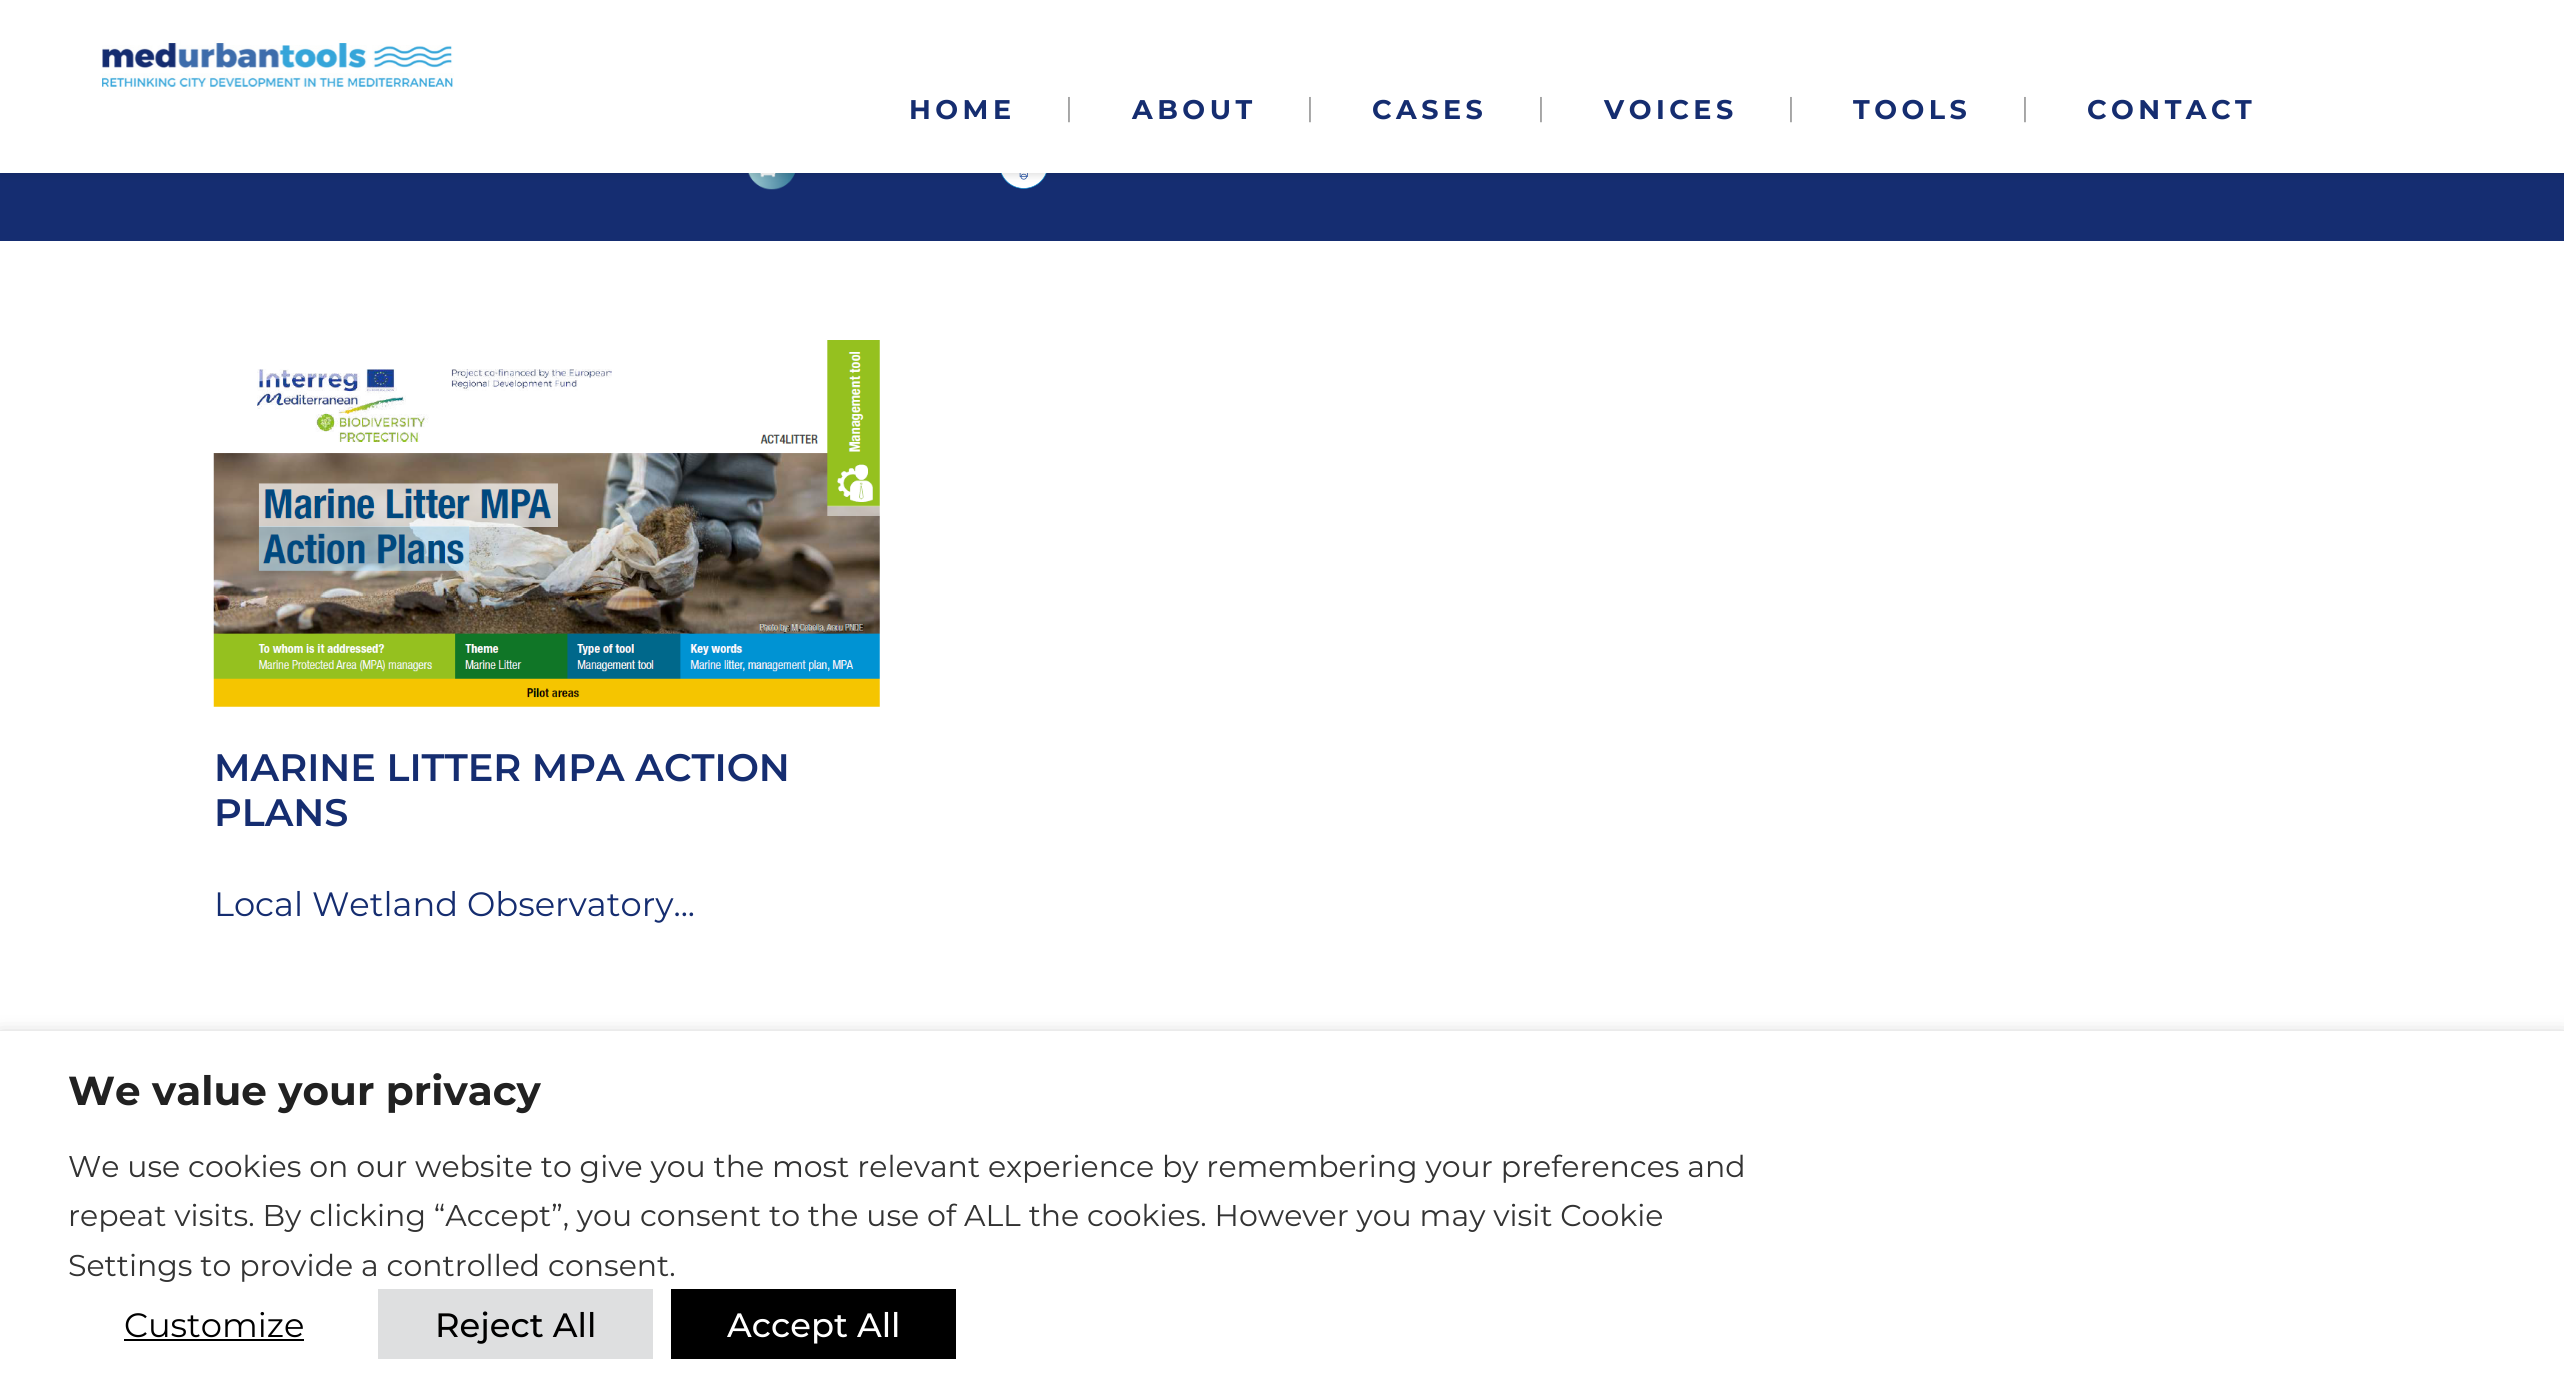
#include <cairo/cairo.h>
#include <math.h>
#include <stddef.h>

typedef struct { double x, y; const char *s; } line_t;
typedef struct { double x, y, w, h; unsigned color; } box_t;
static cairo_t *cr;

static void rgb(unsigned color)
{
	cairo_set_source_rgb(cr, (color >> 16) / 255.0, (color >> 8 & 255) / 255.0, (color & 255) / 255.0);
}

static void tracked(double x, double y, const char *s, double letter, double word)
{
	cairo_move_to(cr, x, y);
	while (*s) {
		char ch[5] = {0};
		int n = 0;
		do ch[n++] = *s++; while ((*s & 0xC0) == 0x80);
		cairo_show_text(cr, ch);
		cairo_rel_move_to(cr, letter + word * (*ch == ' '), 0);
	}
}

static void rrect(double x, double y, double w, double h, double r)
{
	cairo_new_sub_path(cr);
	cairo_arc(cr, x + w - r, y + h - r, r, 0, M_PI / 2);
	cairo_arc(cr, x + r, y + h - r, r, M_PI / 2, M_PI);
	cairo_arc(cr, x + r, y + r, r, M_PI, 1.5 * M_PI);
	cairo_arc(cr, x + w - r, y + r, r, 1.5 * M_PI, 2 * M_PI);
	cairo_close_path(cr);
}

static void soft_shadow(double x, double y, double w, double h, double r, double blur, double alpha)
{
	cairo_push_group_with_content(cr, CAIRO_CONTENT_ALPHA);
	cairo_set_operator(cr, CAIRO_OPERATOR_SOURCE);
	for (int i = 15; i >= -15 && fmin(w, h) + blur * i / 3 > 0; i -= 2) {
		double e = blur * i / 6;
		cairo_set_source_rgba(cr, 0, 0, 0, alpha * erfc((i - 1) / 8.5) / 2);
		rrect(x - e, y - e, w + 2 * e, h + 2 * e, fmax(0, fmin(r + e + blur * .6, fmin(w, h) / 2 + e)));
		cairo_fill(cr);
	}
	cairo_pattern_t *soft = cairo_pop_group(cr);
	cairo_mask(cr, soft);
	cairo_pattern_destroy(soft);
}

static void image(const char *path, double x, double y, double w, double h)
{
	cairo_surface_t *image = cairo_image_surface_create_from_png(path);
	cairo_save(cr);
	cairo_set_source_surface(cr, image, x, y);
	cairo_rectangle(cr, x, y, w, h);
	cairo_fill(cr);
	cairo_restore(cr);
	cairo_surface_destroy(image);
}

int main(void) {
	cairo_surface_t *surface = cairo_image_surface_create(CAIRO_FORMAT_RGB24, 2564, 1392);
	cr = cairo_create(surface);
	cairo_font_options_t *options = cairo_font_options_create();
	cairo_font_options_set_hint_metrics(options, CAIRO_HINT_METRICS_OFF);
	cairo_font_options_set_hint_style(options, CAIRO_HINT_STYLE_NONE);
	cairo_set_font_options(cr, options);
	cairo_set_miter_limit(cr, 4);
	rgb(0xffffff);
	cairo_paint(cr);
	rgb(0x152d71);
	cairo_rectangle(cr, 0, 173, 2564, 68);
	cairo_fill(cr);
	image("img/2.png", 748, 173, 48, 17);
	image("img/3.png", 1001, 173, 46, 16);
	rgb(0x000000);
	soft_shadow(0, 2, 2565, 174, 0, 3.5, 0.11);
	rgb(0xffffff);
	cairo_rectangle(cr, 0, 0, 2564, 173);
	cairo_fill(cr);
	image("img/1.png", 102, 40, 352, 50);
	image("img/4.png", 213, 340, 667, 367);
	rgb(0x000000);
	soft_shadow(0, 1042, 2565, 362, 0, 11, 0.5);
	{
		static const box_t items[] = {
			{0, 1031, 2564, 361, 0xffffff},
			{124, 1339, 180, 2, 0x000000},
			{378, 1289, 275, 70, 0xdedfe0},
			{671, 1289, 285, 70, 0x000000},
		};
		for (size_t i = 0; i < sizeof items / sizeof *items; i++) {
			rgb(items[i].color);
			cairo_rectangle(cr, items[i].x, items[i].y, items[i].w, items[i].h);
			cairo_fill(cr);
		}
	}
	cairo_select_font_face(cr, "Montserrat", CAIRO_FONT_SLANT_NORMAL, CAIRO_FONT_WEIGHT_BOLD);
	cairo_set_font_size(cr, 27);
	rgb(0x152d70);
	tracked(909, 119, "HOME", 4.5, 0);
	cairo_select_font_face(cr, "Montserrat", CAIRO_FONT_SLANT_NORMAL, CAIRO_FONT_WEIGHT_NORMAL);
	rgb(0x9e9e9e);
	cairo_move_to(cr, 1065, 117);
	cairo_show_text(cr, "|");
	cairo_select_font_face(cr, "Montserrat", CAIRO_FONT_SLANT_NORMAL, CAIRO_FONT_WEIGHT_BOLD);
	rgb(0x152d70);
	tracked(1132, 119, "ABOUT", 4.5, 0);
	cairo_select_font_face(cr, "Montserrat", CAIRO_FONT_SLANT_NORMAL, CAIRO_FONT_WEIGHT_NORMAL);
	rgb(0x9e9e9e);
	cairo_move_to(cr, 1306, 117);
	cairo_show_text(cr, "|");
	cairo_select_font_face(cr, "Montserrat", CAIRO_FONT_SLANT_NORMAL, CAIRO_FONT_WEIGHT_BOLD);
	rgb(0x152d70);
	tracked(1372, 119, "CASES", 4.5, 0);
	cairo_select_font_face(cr, "Montserrat", CAIRO_FONT_SLANT_NORMAL, CAIRO_FONT_WEIGHT_NORMAL);
	rgb(0x9e9e9e);
	cairo_move_to(cr, 1537, 117);
	cairo_show_text(cr, "|");
	cairo_select_font_face(cr, "Montserrat", CAIRO_FONT_SLANT_NORMAL, CAIRO_FONT_WEIGHT_BOLD);
	rgb(0x152d70);
	tracked(1604, 119, "VOICES", 4.5, 0);
	cairo_select_font_face(cr, "Montserrat", CAIRO_FONT_SLANT_NORMAL, CAIRO_FONT_WEIGHT_NORMAL);
	rgb(0x9e9e9e);
	cairo_move_to(cr, 1787, 117);
	cairo_show_text(cr, "|");
	cairo_select_font_face(cr, "Montserrat", CAIRO_FONT_SLANT_NORMAL, CAIRO_FONT_WEIGHT_BOLD);
	rgb(0x152d70);
	tracked(1853, 119, "TOOLS", 4.5, 0);
	cairo_select_font_face(cr, "Montserrat", CAIRO_FONT_SLANT_NORMAL, CAIRO_FONT_WEIGHT_NORMAL);
	rgb(0x9e9e9e);
	cairo_move_to(cr, 2021, 117);
	cairo_show_text(cr, "|");
	cairo_select_font_face(cr, "Montserrat", CAIRO_FONT_SLANT_NORMAL, CAIRO_FONT_WEIGHT_BOLD);
	rgb(0x152d70);
	tracked(2087, 119, "CONTACT", 4.5, 0);
	cairo_select_font_face(cr, "Montserrat SemiBold", CAIRO_FONT_SLANT_NORMAL, CAIRO_FONT_WEIGHT_NORMAL);
	cairo_set_font_size(cr, 38.25);
	cairo_move_to(cr, 214, 781);
	cairo_show_text(cr, "MARINE LITTER MPA ACTION");
	cairo_move_to(cr, 214, 826);
	cairo_show_text(cr, "PLANS");
	cairo_select_font_face(cr, "Montserrat", CAIRO_FONT_SLANT_NORMAL, CAIRO_FONT_WEIGHT_NORMAL);
	cairo_set_font_size(cr, 33.75);
	cairo_move_to(cr, 214, 916);
	cairo_show_text(cr, "Local Wetland Observatory...");
	cairo_select_font_face(cr, "Montserrat", CAIRO_FONT_SLANT_NORMAL, CAIRO_FONT_WEIGHT_BOLD);
	cairo_set_font_size(cr, 40.5);
	rgb(0x212121);
	cairo_move_to(cr, 68, 1105);
	cairo_show_text(cr, "We value your privacy");
	cairo_select_font_face(cr, "Montserrat", CAIRO_FONT_SLANT_NORMAL, CAIRO_FONT_WEIGHT_NORMAL);
	cairo_set_font_size(cr, 30);
	rgb(0x333333);
	{
		static const line_t items[] = {
			{68, 1177, "We use cookies on our website to give you the most relevant experience by remembering your preferences and"},
			{68, 1226, "repeat visits. By clicking “Accept”, you consent to the use of ALL the cookies. However you may visit Cookie"},
			{68, 1276, "Settings to provide a controlled consent."},
		};
		for (size_t i = 0; i < sizeof items / sizeof *items; i++) {
			cairo_move_to(cr, items[i].x, items[i].y);
			cairo_show_text(cr, items[i].s);
		}
	}
	cairo_set_font_size(cr, 33.75);
	rgb(0x000000);
	cairo_move_to(cr, 124, 1337);
	cairo_show_text(cr, "Customize");
	cairo_select_font_face(cr, "Montserrat Medium", CAIRO_FONT_SLANT_NORMAL, CAIRO_FONT_WEIGHT_NORMAL);
	cairo_move_to(cr, 435, 1337);
	cairo_show_text(cr, "Reject All");
	rgb(0xffffff);
	cairo_move_to(cr, 727, 1337);
	cairo_show_text(cr, "Accept All");
	cairo_surface_write_to_png(surface, "page.png");
	cairo_font_options_destroy(options);
	cairo_destroy(cr);
	cairo_surface_destroy(surface);
	return 0;
}
